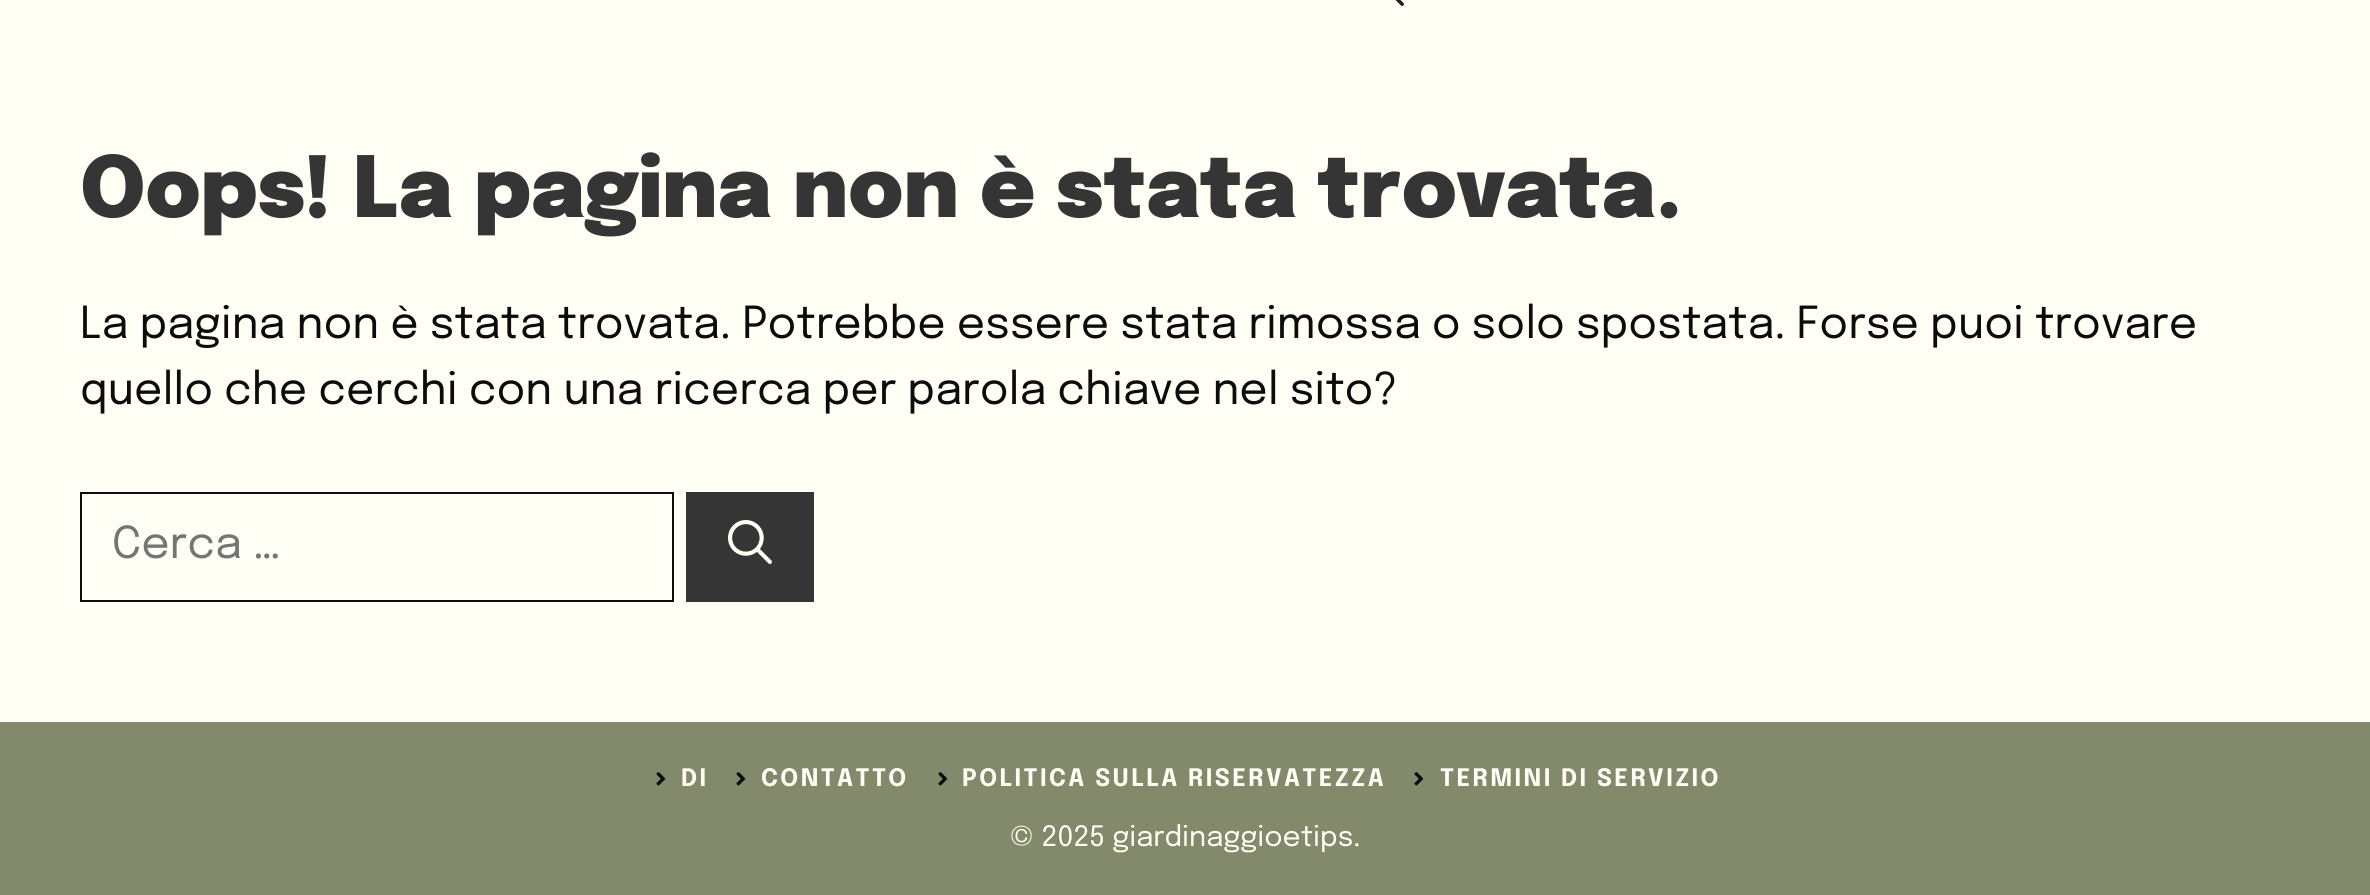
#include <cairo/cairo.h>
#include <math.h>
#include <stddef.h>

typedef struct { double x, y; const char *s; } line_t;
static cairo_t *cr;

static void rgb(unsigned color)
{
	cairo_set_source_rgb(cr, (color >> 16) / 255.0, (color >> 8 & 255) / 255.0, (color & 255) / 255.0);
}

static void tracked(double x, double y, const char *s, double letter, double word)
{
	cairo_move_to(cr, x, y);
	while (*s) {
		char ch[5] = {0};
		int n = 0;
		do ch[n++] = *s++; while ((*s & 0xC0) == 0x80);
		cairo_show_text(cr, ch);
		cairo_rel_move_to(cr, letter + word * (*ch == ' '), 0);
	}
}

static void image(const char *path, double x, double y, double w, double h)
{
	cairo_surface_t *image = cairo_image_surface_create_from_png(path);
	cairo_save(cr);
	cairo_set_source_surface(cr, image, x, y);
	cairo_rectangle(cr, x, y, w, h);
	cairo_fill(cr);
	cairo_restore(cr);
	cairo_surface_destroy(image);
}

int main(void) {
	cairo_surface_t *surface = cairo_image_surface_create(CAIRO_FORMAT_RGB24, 2370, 895);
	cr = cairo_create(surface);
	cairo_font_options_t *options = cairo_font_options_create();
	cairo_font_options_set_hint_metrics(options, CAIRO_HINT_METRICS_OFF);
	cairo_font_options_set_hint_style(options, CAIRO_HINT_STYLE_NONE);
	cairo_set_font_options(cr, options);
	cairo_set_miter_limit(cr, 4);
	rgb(0xfffff6);
	cairo_paint(cr);
	image("img/1.png", 1395, 0, 9, 6);
	cairo_rectangle(cr, 81, 493, 592, 108);
	rgb(0x0c0c0c);
	cairo_stroke(cr);
	rgb(0x353535);
	cairo_rectangle(cr, 686, 492, 128, 110);
	cairo_fill(cr);
	image("img/2.png", 728, 520, 44, 44);
	rgb(0x838a6c);
	cairo_rectangle(cr, 0, 722, 2370, 173);
	cairo_fill(cr);
	image("img/3.png", 656, 772, 10, 14);
	image("img/3.png", 736, 772, 10, 14);
	image("img/3.png", 938, 772, 10, 14);
	image("img/3.png", 1414, 772, 10, 14);
	cairo_select_font_face(cr, "Epilogue Black", CAIRO_FONT_SLANT_NORMAL, CAIRO_FONT_WEIGHT_NORMAL);
	cairo_set_font_size(cr, 84);
	rgb(0x353535);
	cairo_move_to(cr, 80, 217);
	cairo_show_text(cr, "Oops! La pagina non è stata trovata.");
	cairo_select_font_face(cr, "Epilogue", CAIRO_FONT_SLANT_NORMAL, CAIRO_FONT_WEIGHT_NORMAL);
	cairo_set_font_size(cr, 44);
	rgb(0x0c0c0c);
	cairo_move_to(cr, 80, 338);
	cairo_show_text(cr, "La pagina non è stata trovata. Potrebbe essere stata rimossa o solo spostata. Forse puoi trovare");
	cairo_move_to(cr, 80, 404);
	cairo_show_text(cr, "quello che cerchi con una ricerca per parola chiave nel sito?");
	rgb(0x757575);
	cairo_move_to(cr, 112, 558);
	cairo_show_text(cr, "Cerca …");
	cairo_select_font_face(cr, "Epilogue", CAIRO_FONT_SLANT_NORMAL, CAIRO_FONT_WEIGHT_BOLD);
	cairo_set_font_size(cr, 24);
	rgb(0xfffff6);
	{
		static const line_t items[] = {
			{681, 786, "DI"},
			{761, 786, "CONTATTO"},
			{962, 786, "POLITICA SULLA RISERVATEZZA"},
			{1440, 786, "TERMINI DI SERVIZIO"},
		};
		for (size_t i = 0; i < sizeof items / sizeof *items; i++) {
			tracked(items[i].x, items[i].y, items[i].s, 2.4, 0);
		}
	}
	cairo_select_font_face(cr, "Epilogue", CAIRO_FONT_SLANT_NORMAL, CAIRO_FONT_WEIGHT_NORMAL);
	cairo_set_font_size(cr, 28);
	cairo_move_to(cr, 1010, 846);
	cairo_show_text(cr, "© 2025 giardinaggioetips.");
	cairo_surface_write_to_png(surface, "page.png");
	cairo_font_options_destroy(options);
	cairo_destroy(cr);
	cairo_surface_destroy(surface);
	return 0;
}
